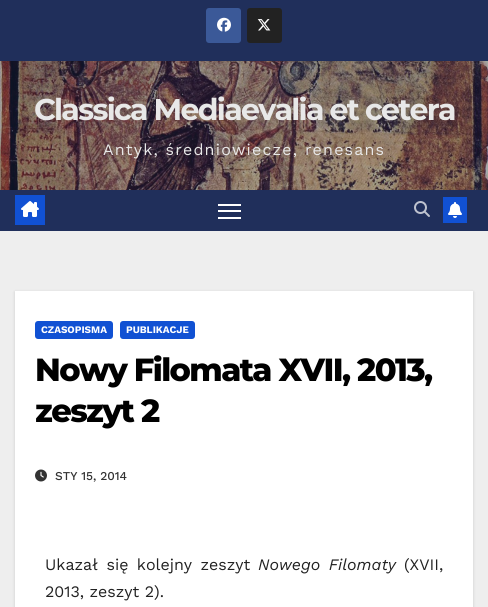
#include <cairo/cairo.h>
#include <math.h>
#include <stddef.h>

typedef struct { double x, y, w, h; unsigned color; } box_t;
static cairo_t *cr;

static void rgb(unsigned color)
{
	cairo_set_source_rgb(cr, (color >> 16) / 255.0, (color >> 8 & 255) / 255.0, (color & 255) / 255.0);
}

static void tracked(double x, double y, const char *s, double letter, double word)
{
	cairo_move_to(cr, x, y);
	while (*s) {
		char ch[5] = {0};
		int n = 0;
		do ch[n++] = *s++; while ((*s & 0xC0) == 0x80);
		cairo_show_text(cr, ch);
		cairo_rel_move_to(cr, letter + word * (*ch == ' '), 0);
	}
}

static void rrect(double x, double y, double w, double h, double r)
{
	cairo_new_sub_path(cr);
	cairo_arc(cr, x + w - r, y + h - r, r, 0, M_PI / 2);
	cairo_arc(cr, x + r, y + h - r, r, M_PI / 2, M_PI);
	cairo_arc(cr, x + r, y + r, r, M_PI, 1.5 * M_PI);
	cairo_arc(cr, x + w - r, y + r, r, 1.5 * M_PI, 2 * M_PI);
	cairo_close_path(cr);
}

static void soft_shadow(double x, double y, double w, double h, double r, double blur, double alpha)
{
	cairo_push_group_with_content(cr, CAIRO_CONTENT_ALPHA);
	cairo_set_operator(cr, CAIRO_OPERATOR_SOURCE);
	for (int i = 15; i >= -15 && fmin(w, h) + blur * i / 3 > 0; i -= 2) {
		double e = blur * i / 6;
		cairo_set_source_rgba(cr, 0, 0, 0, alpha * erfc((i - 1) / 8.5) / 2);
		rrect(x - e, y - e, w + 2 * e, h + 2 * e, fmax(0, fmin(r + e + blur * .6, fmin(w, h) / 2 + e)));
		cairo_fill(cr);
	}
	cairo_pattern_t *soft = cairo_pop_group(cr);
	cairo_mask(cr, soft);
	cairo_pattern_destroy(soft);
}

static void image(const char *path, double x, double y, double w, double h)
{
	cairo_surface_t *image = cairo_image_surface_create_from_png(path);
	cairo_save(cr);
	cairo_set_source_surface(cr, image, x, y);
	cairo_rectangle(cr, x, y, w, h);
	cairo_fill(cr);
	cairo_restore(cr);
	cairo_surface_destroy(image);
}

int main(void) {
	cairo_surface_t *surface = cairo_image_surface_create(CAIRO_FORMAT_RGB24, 488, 607);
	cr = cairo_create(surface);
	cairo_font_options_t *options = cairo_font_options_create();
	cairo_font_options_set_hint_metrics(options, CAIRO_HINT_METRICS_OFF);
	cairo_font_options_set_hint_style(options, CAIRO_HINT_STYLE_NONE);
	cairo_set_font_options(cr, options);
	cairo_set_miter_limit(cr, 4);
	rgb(0xeeeeee);
	cairo_paint(cr);
	rgb(0x202f5b);
	cairo_rectangle(cr, 0, 0, 488, 61);
	cairo_fill(cr);
	rgb(0x3b5998);
	rrect(206, 8, 35, 35, 3);
	cairo_fill(cr);
	image("img/1.png", 217, 17, 14, 15);
	rgb(0x222222);
	rrect(247, 8, 35, 35, 3);
	cairo_fill(cr);
	image("img/2.png", 257, 19, 14, 12);
	image("img/3.png", 0, 61, 488, 129);
	rgb(0x202f5b);
	cairo_rectangle(cr, 0, 190, 488, 41);
	cairo_fill(cr);
	rgb(0x1151d3);
	cairo_rectangle(cr, 15, 195, 30, 30);
	cairo_fill(cr);
	image("img/4.png", 21, 201, 18, 16);
	{
		static const box_t items[] = {
			{218, 204, 23, 2, 0xffffff},
			{218, 210, 23, 2, 0xffffff},
			{218, 217, 23, 2, 0xffffff},
		};
		for (size_t i = 0; i < sizeof items / sizeof *items; i++) {
			rgb(items[i].color);
			cairo_rectangle(cr, items[i].x, items[i].y, items[i].w, items[i].h);
			cairo_fill(cr);
		}
	}
	image("img/5.png", 414, 201, 16, 16);
	rgb(0x1151d3);
	cairo_rectangle(cr, 443, 197, 24, 26);
	cairo_fill(cr);
	image("img/6.png", 448, 202, 14, 16);
	rgb(0x000000);
	soft_shadow(15, 292, 458, 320, 0, 1.5, 0.15);
	rgb(0xffffff);
	cairo_rectangle(cr, 15, 291, 458, 316);
	cairo_fill(cr);
	rgb(0x1151d3);
	rrect(35, 321, 78, 18, 3);
	cairo_fill(cr);
	rrect(120, 321, 75, 18, 3);
	cairo_fill(cr);
	image("img/7.png", 35, 469, 12, 13);
	cairo_select_font_face(cr, "Montserrat", CAIRO_FONT_SLANT_NORMAL, CAIRO_FONT_WEIGHT_BOLD);
	cairo_set_font_size(cr, 30);
	rgb(0xe8e8e8);
	tracked(34, 120, "Classica Mediaevalia et cetera", -1.7, 0);
	cairo_select_font_face(cr, "Work Sans", CAIRO_FONT_SLANT_NORMAL, CAIRO_FONT_WEIGHT_NORMAL);
	cairo_set_font_size(cr, 16);
	tracked(103, 155, "Antyk, średniowiecze, renesans", 1.2, 0);
	cairo_select_font_face(cr, "Work Sans", CAIRO_FONT_SLANT_NORMAL, CAIRO_FONT_WEIGHT_BOLD);
	cairo_set_font_size(cr, 10);
	rgb(0xffffff);
	cairo_move_to(cr, 41, 333);
	cairo_show_text(cr, "CZASOPISMA");
	cairo_move_to(cr, 126, 333);
	cairo_show_text(cr, "PUBLIKACJE");
	cairo_select_font_face(cr, "Montserrat ExtraBold", CAIRO_FONT_SLANT_NORMAL, CAIRO_FONT_WEIGHT_NORMAL);
	cairo_set_font_size(cr, 32);
	rgb(0x000000);
	tracked(35, 381, "Nowy Filomata XVII, 2013,", -1.6, 0);
	tracked(35, 422, "zeszyt 2", -1.6, 0);
	cairo_select_font_face(cr, "Work Sans Medium", CAIRO_FONT_SLANT_NORMAL, CAIRO_FONT_WEIGHT_NORMAL);
	cairo_set_font_size(cr, 12);
	rgb(0x333333);
	cairo_move_to(cr, 55, 480);
	cairo_show_text(cr, "STY 15, 2014");
	cairo_select_font_face(cr, "Work Sans", CAIRO_FONT_SLANT_NORMAL, CAIRO_FONT_WEIGHT_NORMAL);
	cairo_set_font_size(cr, 16);
	rgb(0x222222);
	tracked(45, 570, "Ukazał się kolejny zeszyt", 0, 3);
	cairo_select_font_face(cr, "Work Sans", CAIRO_FONT_SLANT_ITALIC, CAIRO_FONT_WEIGHT_NORMAL);
	tracked(258, 570, "Nowego Filomaty", 0, 3);
	cairo_select_font_face(cr, "Work Sans", CAIRO_FONT_SLANT_NORMAL, CAIRO_FONT_WEIGHT_NORMAL);
	cairo_move_to(cr, 404, 570);
	cairo_show_text(cr, "(XVII,");
	cairo_move_to(cr, 45, 597);
	cairo_show_text(cr, "2013, zeszyt 2).");
	cairo_surface_write_to_png(surface, "page.png");
	cairo_font_options_destroy(options);
	cairo_destroy(cr);
	cairo_surface_destroy(surface);
	return 0;
}
